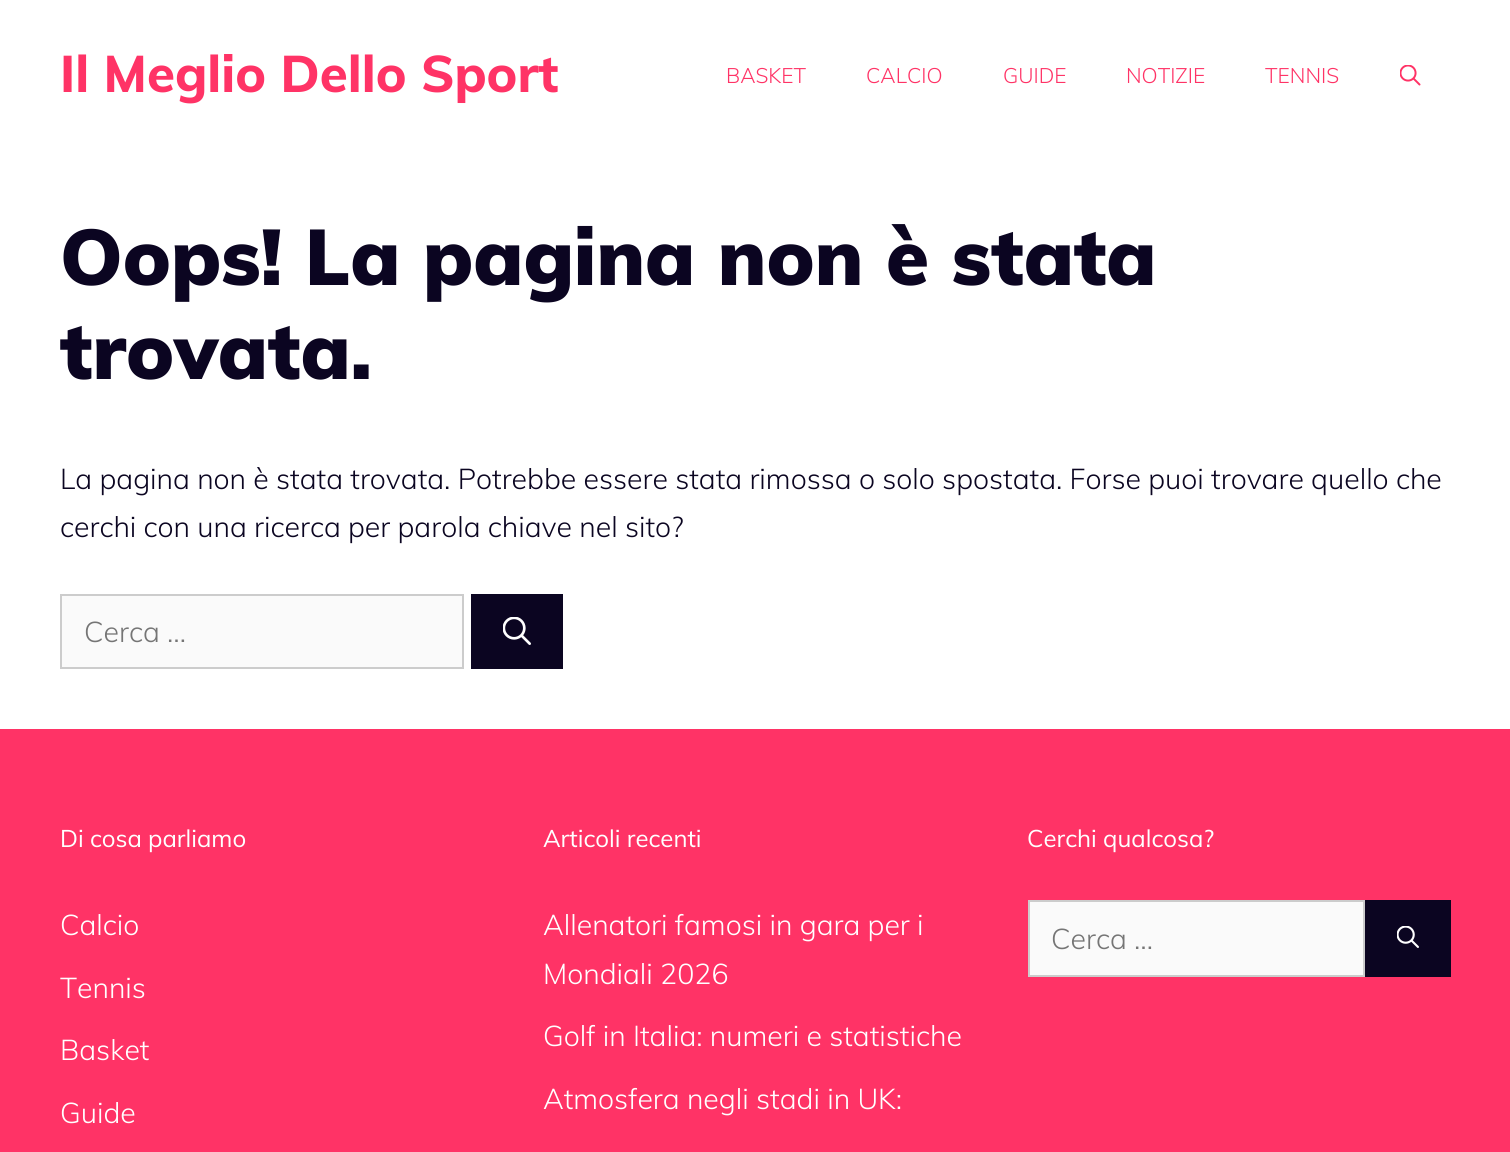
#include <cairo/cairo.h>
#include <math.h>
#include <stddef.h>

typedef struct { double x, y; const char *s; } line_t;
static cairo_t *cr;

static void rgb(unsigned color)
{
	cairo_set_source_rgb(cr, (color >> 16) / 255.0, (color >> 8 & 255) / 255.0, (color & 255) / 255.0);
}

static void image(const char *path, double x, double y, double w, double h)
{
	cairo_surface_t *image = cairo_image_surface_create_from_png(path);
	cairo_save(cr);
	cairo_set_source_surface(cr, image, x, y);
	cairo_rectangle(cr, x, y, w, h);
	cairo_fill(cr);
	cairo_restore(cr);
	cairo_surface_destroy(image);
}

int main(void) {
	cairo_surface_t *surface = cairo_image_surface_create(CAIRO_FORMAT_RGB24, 1510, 1152);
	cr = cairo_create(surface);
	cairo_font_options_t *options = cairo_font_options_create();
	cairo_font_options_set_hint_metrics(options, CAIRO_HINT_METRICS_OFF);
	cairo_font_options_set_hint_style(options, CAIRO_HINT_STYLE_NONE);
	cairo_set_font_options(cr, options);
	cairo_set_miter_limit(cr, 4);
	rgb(0xffffff);
	cairo_paint(cr);
	image("img/1.png", 1400, 65, 21, 21);
	rgb(0xfafafa);
	cairo_rectangle(cr, 61, 595, 402, 73);
	cairo_fill_preserve(cr);
	rgb(0xcccccc);
	cairo_stroke(cr);
	rgb(0x0b0521);
	cairo_rectangle(cr, 471, 594, 92, 75);
	cairo_fill(cr);
	image("img/2.png", 503, 617, 28, 28);
	rgb(0xff3366);
	cairo_rectangle(cr, 0, 729, 1510, 423);
	cairo_fill(cr);
	rgb(0xfafafa);
	cairo_rectangle(cr, 1029, 901, 335, 75);
	cairo_fill_preserve(cr);
	rgb(0xcccccc);
	cairo_stroke(cr);
	rgb(0x0b0521);
	cairo_rectangle(cr, 1365, 900, 86, 77);
	cairo_fill(cr);
	image("img/3.png", 1397, 926, 22, 22);
	cairo_select_font_face(cr, "Muli ExtraBold", CAIRO_FONT_SLANT_NORMAL, CAIRO_FONT_WEIGHT_NORMAL);
	cairo_set_font_size(cr, 51);
	rgb(0xff3366);
	cairo_move_to(cr, 60, 92);
	cairo_show_text(cr, "Il Meglio Dello Sport");
	cairo_select_font_face(cr, "Muli Light", CAIRO_FONT_SLANT_NORMAL, CAIRO_FONT_WEIGHT_NORMAL);
	cairo_set_font_size(cr, 21);
	{
		static const line_t items[] = {
			{726, 83, "BASKET"},
			{866, 83, "CALCIO"},
			{1003, 83, "GUIDE"},
			{1126, 83, "NOTIZIE"},
			{1265, 83, "TENNIS"},
		};
		for (size_t i = 0; i < sizeof items / sizeof *items; i++) {
			cairo_move_to(cr, items[i].x, items[i].y);
			cairo_show_text(cr, items[i].s);
		}
	}
	cairo_select_font_face(cr, "Muli Black", CAIRO_FONT_SLANT_NORMAL, CAIRO_FONT_WEIGHT_NORMAL);
	cairo_set_font_size(cr, 78);
	rgb(0x0b0521);
	cairo_move_to(cr, 60, 285);
	cairo_show_text(cr, "Oops! La pagina non è stata");
	cairo_move_to(cr, 60, 379);
	cairo_show_text(cr, "trovata.");
	cairo_select_font_face(cr, "Muli Light", CAIRO_FONT_SLANT_NORMAL, CAIRO_FONT_WEIGHT_NORMAL);
	cairo_set_font_size(cr, 28.5);
	cairo_move_to(cr, 60, 489);
	cairo_show_text(cr, "La pagina non è stata trovata. Potrebbe essere stata rimossa o solo spostata. Forse puoi trovare quello che");
	cairo_move_to(cr, 60, 537);
	cairo_show_text(cr, "cerchi con una ricerca per parola chiave nel sito?");
	rgb(0x757575);
	cairo_move_to(cr, 84, 642);
	cairo_show_text(cr, "Cerca …");
	cairo_select_font_face(cr, "Muli", CAIRO_FONT_SLANT_NORMAL, CAIRO_FONT_WEIGHT_NORMAL);
	cairo_set_font_size(cr, 24);
	rgb(0xffffff);
	cairo_move_to(cr, 60, 847);
	cairo_show_text(cr, "Di cosa parliamo");
	cairo_select_font_face(cr, "Muli Light", CAIRO_FONT_SLANT_NORMAL, CAIRO_FONT_WEIGHT_NORMAL);
	cairo_set_font_size(cr, 28.5);
	{
		static const line_t items[] = {
			{60, 935, "Calcio"},
			{60, 998, "Tennis"},
			{60, 1060, "Basket"},
			{60, 1123, "Guide"},
		};
		for (size_t i = 0; i < sizeof items / sizeof *items; i++) {
			cairo_move_to(cr, items[i].x, items[i].y);
			cairo_show_text(cr, items[i].s);
		}
	}
	cairo_select_font_face(cr, "Muli", CAIRO_FONT_SLANT_NORMAL, CAIRO_FONT_WEIGHT_NORMAL);
	cairo_set_font_size(cr, 24);
	cairo_move_to(cr, 543, 847);
	cairo_show_text(cr, "Articoli recenti");
	cairo_select_font_face(cr, "Muli Light", CAIRO_FONT_SLANT_NORMAL, CAIRO_FONT_WEIGHT_NORMAL);
	cairo_set_font_size(cr, 28.5);
	{
		static const line_t items[] = {
			{543, 935, "Allenatori famosi in gara per i"},
			{543, 984, "Mondiali 2026"},
			{543, 1046, "Golf in Italia: numeri e statistiche"},
			{543, 1109, "Atmosfera negli stadi in UK:"},
		};
		for (size_t i = 0; i < sizeof items / sizeof *items; i++) {
			cairo_move_to(cr, items[i].x, items[i].y);
			cairo_show_text(cr, items[i].s);
		}
	}
	cairo_select_font_face(cr, "Muli", CAIRO_FONT_SLANT_NORMAL, CAIRO_FONT_WEIGHT_NORMAL);
	cairo_set_font_size(cr, 24);
	cairo_move_to(cr, 1027, 847);
	cairo_show_text(cr, "Cerchi qualcosa?");
	cairo_select_font_face(cr, "Muli Light", CAIRO_FONT_SLANT_NORMAL, CAIRO_FONT_WEIGHT_NORMAL);
	cairo_set_font_size(cr, 28.5);
	rgb(0x757575);
	cairo_move_to(cr, 1051, 949);
	cairo_show_text(cr, "Cerca …");
	cairo_surface_write_to_png(surface, "page.png");
	cairo_font_options_destroy(options);
	cairo_destroy(cr);
	cairo_surface_destroy(surface);
	return 0;
}
